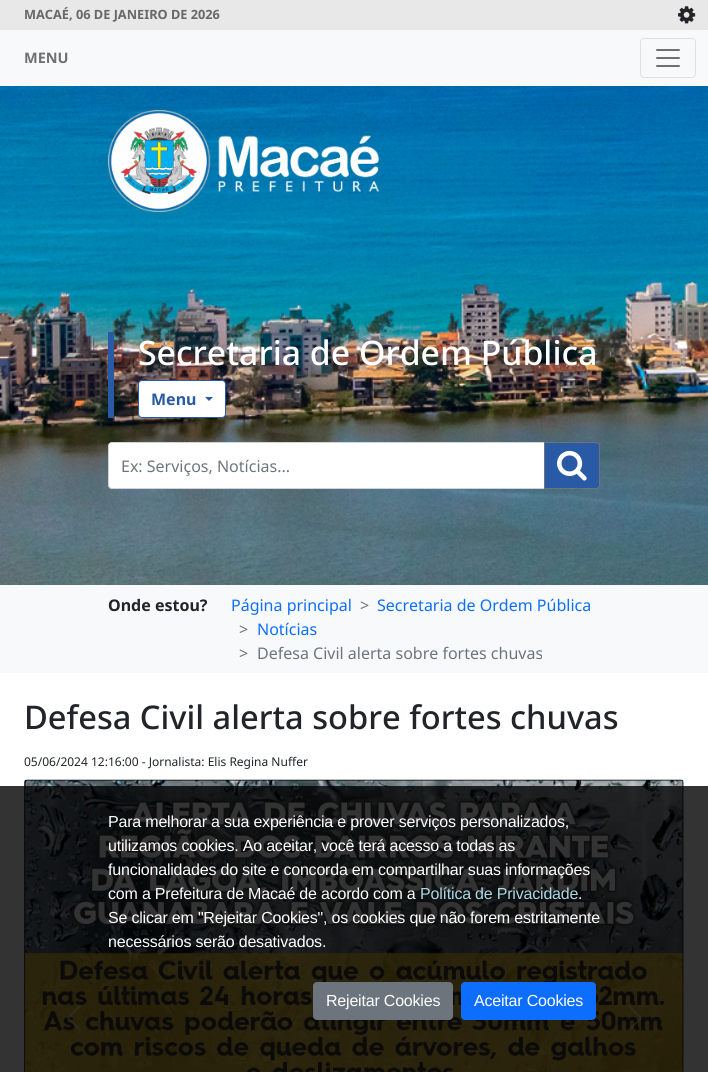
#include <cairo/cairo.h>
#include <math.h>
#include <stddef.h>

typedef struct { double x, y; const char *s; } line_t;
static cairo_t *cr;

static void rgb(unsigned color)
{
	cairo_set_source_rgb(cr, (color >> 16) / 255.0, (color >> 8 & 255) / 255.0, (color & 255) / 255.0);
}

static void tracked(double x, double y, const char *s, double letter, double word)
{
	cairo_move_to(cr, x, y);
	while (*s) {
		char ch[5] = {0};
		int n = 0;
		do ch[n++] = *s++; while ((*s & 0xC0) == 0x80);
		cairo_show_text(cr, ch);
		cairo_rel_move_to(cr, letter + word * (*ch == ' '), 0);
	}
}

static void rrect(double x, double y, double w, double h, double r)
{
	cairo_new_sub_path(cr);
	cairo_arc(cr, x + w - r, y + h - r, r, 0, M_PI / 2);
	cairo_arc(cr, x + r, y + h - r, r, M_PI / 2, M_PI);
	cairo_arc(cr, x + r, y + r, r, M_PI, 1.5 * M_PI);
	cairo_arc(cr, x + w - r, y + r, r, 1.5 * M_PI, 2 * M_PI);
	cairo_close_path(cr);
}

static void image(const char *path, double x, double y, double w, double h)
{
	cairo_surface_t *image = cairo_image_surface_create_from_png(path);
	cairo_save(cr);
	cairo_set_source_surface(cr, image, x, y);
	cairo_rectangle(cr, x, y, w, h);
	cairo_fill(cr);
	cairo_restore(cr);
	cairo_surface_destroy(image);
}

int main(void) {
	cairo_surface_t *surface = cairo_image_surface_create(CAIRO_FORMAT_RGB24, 708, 1072);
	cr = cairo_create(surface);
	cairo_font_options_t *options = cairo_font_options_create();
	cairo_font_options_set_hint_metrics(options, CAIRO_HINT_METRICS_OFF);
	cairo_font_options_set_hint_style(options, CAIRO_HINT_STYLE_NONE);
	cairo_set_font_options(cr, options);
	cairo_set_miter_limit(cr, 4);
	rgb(0xffffff);
	cairo_paint(cr);
	rgb(0x333333);
	cairo_rectangle(cr, 0, 786, 708, 286);
	cairo_fill(cr);
	rgb(0xe8e8e8);
	cairo_rectangle(cr, 0, 0, 708, 30);
	cairo_fill(cr);
	image("img/1.png", 678, 6, 18, 18);
	rgb(0xf8f9fa);
	cairo_rectangle(cr, 0, 30, 708, 56);
	cairo_fill(cr);
	rrect(640.5, 38.5, 55, 39, 3.5);
	rgb(0xdfe0e1);
	cairo_set_line_width(cr, 1);
	cairo_stroke(cr);
	image("img/2.png", 656, 49, 24, 18);
	image("img/3.png", 0, 86, 708, 499);
	image("img/4.png", 108, 110, 271, 102);
	rgb(0x295aa6);
	cairo_rectangle(cr, 108, 332, 6, 86);
	cairo_fill(cr);
	rgb(0xffffff);
	rrect(138.5, 380.5, 87, 37, 3.5);
	cairo_fill_preserve(cr);
	rgb(0x295aa6);
	cairo_stroke(cr);
	cairo_new_path(cr);
	cairo_move_to(cr, 205, 397);
	cairo_line_to(cr, 213, 397);
	cairo_line_to(cr, 209, 401);
	cairo_close_path(cr);
	cairo_fill(cr);
	rgb(0xffffff);
	cairo_new_path(cr);
	cairo_move_to(cr, 112, 442.5);
	cairo_line_to(cr, 544.5, 442.5);
	cairo_line_to(cr, 544.5, 488.5);
	cairo_line_to(cr, 112, 488.5);
	cairo_curve_to(cr, 110, 488.5, 108.5, 487, 108.5, 485);
	cairo_line_to(cr, 108.5, 446);
	cairo_curve_to(cr, 108.5, 444, 110, 442.5, 112, 442.5);
	cairo_close_path(cr);
	cairo_fill_preserve(cr);
	rgb(0xced4da);
	cairo_stroke(cr);
	rgb(0x295aa6);
	cairo_new_path(cr);
	cairo_move_to(cr, 544.5, 442.5);
	cairo_line_to(cr, 596, 442.5);
	cairo_curve_to(cr, 598, 442.5, 599.5, 444, 599.5, 446);
	cairo_line_to(cr, 599.5, 485);
	cairo_curve_to(cr, 599.5, 487, 598, 488.5, 596, 488.5);
	cairo_line_to(cr, 544.5, 488.5);
	cairo_close_path(cr);
	cairo_fill_preserve(cr);
	rgb(0x6c757d);
	cairo_stroke(cr);
	image("img/5.png", 557, 450, 30, 31);
	rgb(0xf8f9fa);
	cairo_rectangle(cr, 0, 585, 708, 88);
	cairo_fill(cr);
	image("img/6.png", 24, 779, 660, 293);
	image("img/7.png", 67, 1005, 14, 26);
	image("img/8.png", 628, 1005, 14, 26);
	rgb(0x6c757d);
	rrect(313.5, 982.5, 139, 37, 3.5);
	cairo_fill_preserve(cr);
	cairo_stroke(cr);
	rgb(0x0d6efd);
	rrect(461.5, 982.5, 134, 37, 3.5);
	cairo_fill_preserve(cr);
	cairo_stroke(cr);
	cairo_select_font_face(cr, "Noto Sans", CAIRO_FONT_SLANT_NORMAL, CAIRO_FONT_WEIGHT_BOLD);
	cairo_set_font_size(cr, 12.75);
	rgb(0x686868);
	cairo_move_to(cr, 24, 19);
	cairo_show_text(cr, "MACAÉ, 06 DE JANEIRO DE 2026");
	cairo_set_font_size(cr, 14.5);
	rgb(0x707071);
	cairo_move_to(cr, 24, 63);
	cairo_show_text(cr, "MENU");
	cairo_select_font_face(cr, "Noto Sans Medium", CAIRO_FONT_SLANT_NORMAL, CAIRO_FONT_WEIGHT_NORMAL);
	cairo_set_font_size(cr, 33.75);
	rgb(0xffffff);
	cairo_move_to(cr, 138, 365);
	cairo_show_text(cr, "Secretaria de Ordem Pública");
	cairo_select_font_face(cr, "Noto Sans", CAIRO_FONT_SLANT_NORMAL, CAIRO_FONT_WEIGHT_BOLD);
	cairo_set_font_size(cr, 16);
	rgb(0x295aa6);
	cairo_move_to(cr, 151, 405);
	cairo_show_text(cr, "Menu");
	cairo_select_font_face(cr, "Noto Sans", CAIRO_FONT_SLANT_NORMAL, CAIRO_FONT_WEIGHT_NORMAL);
	rgb(0x6c757d);
	cairo_move_to(cr, 121, 472);
	cairo_show_text(cr, "Ex: Serviços, Notícias...");
	cairo_select_font_face(cr, "Noto Sans", CAIRO_FONT_SLANT_NORMAL, CAIRO_FONT_WEIGHT_BOLD);
	rgb(0x212529);
	cairo_move_to(cr, 108, 611);
	cairo_show_text(cr, "Onde estou?");
	cairo_select_font_face(cr, "Noto Sans", CAIRO_FONT_SLANT_NORMAL, CAIRO_FONT_WEIGHT_NORMAL);
	rgb(0x0d6efd);
	cairo_move_to(cr, 231, 611);
	cairo_show_text(cr, "Página principal");
	rgb(0x6c757d);
	cairo_move_to(cr, 360, 611);
	cairo_show_text(cr, ">");
	rgb(0x0d6efd);
	cairo_move_to(cr, 377, 611);
	cairo_show_text(cr, "Secretaria de Ordem Pública");
	rgb(0x6c757d);
	cairo_move_to(cr, 239, 635);
	cairo_show_text(cr, ">");
	rgb(0x0d6efd);
	cairo_move_to(cr, 257, 635);
	cairo_show_text(cr, "Notícias");
	rgb(0x6c757d);
	cairo_move_to(cr, 239, 659);
	cairo_show_text(cr, ">");
	cairo_move_to(cr, 257, 659);
	cairo_show_text(cr, "Defesa Civil alerta sobre fortes chuvas");
	cairo_select_font_face(cr, "Noto Sans Medium", CAIRO_FONT_SLANT_NORMAL, CAIRO_FONT_WEIGHT_NORMAL);
	cairo_set_font_size(cr, 32.6);
	rgb(0x212529);
	cairo_move_to(cr, 24, 729);
	cairo_show_text(cr, "Defesa Civil alerta sobre fortes chuvas");
	cairo_select_font_face(cr, "Noto Sans", CAIRO_FONT_SLANT_NORMAL, CAIRO_FONT_WEIGHT_NORMAL);
	cairo_set_font_size(cr, 12);
	cairo_move_to(cr, 24, 766);
	cairo_show_text(cr, "05/06/2024 12:16:00 - Jornalista: Elis Regina Nuffer");
	cairo_select_font_face(cr, "Liberation Sans", CAIRO_FONT_SLANT_NORMAL, CAIRO_FONT_WEIGHT_NORMAL);
	cairo_set_font_size(cr, 16);
	rgb(0xffffff);
	{
		static const line_t items[] = {
			{108, 827, "Para melhorar a sua experiência e prover serviços personalizados,"},
			{108, 851, "utilizamos cookies. Ao aceitar, você terá acesso a todas as"},
			{108, 875, "funcionalidades do site e concorda em compartilhar suas informações"},
			{108, 899, "com a Prefeitura de Macaé de acordo com a"},
		};
		for (size_t i = 0; i < sizeof items / sizeof *items; i++) {
			tracked(items[i].x, items[i].y, items[i].s, -0.2, 0);
		}
	}
	rgb(0xadd8e6);
	tracked(420, 899, "Política de Privacidade", -0.2, 0);
	rgb(0xffffff);
	{
		static const line_t items[] = {
			{578, 899, "."},
			{108, 923, "Se clicar em \"Rejeitar Cookies\", os cookies que não forem estritamente"},
			{108, 947, "necessários serão desativados."},
			{326, 1006, "Rejeitar Cookies"},
			{474, 1006, "Aceitar Cookies"},
		};
		for (size_t i = 0; i < sizeof items / sizeof *items; i++) {
			tracked(items[i].x, items[i].y, items[i].s, -0.2, 0);
		}
	}
	cairo_surface_write_to_png(surface, "page.png");
	cairo_font_options_destroy(options);
	cairo_destroy(cr);
	cairo_surface_destroy(surface);
	return 0;
}
